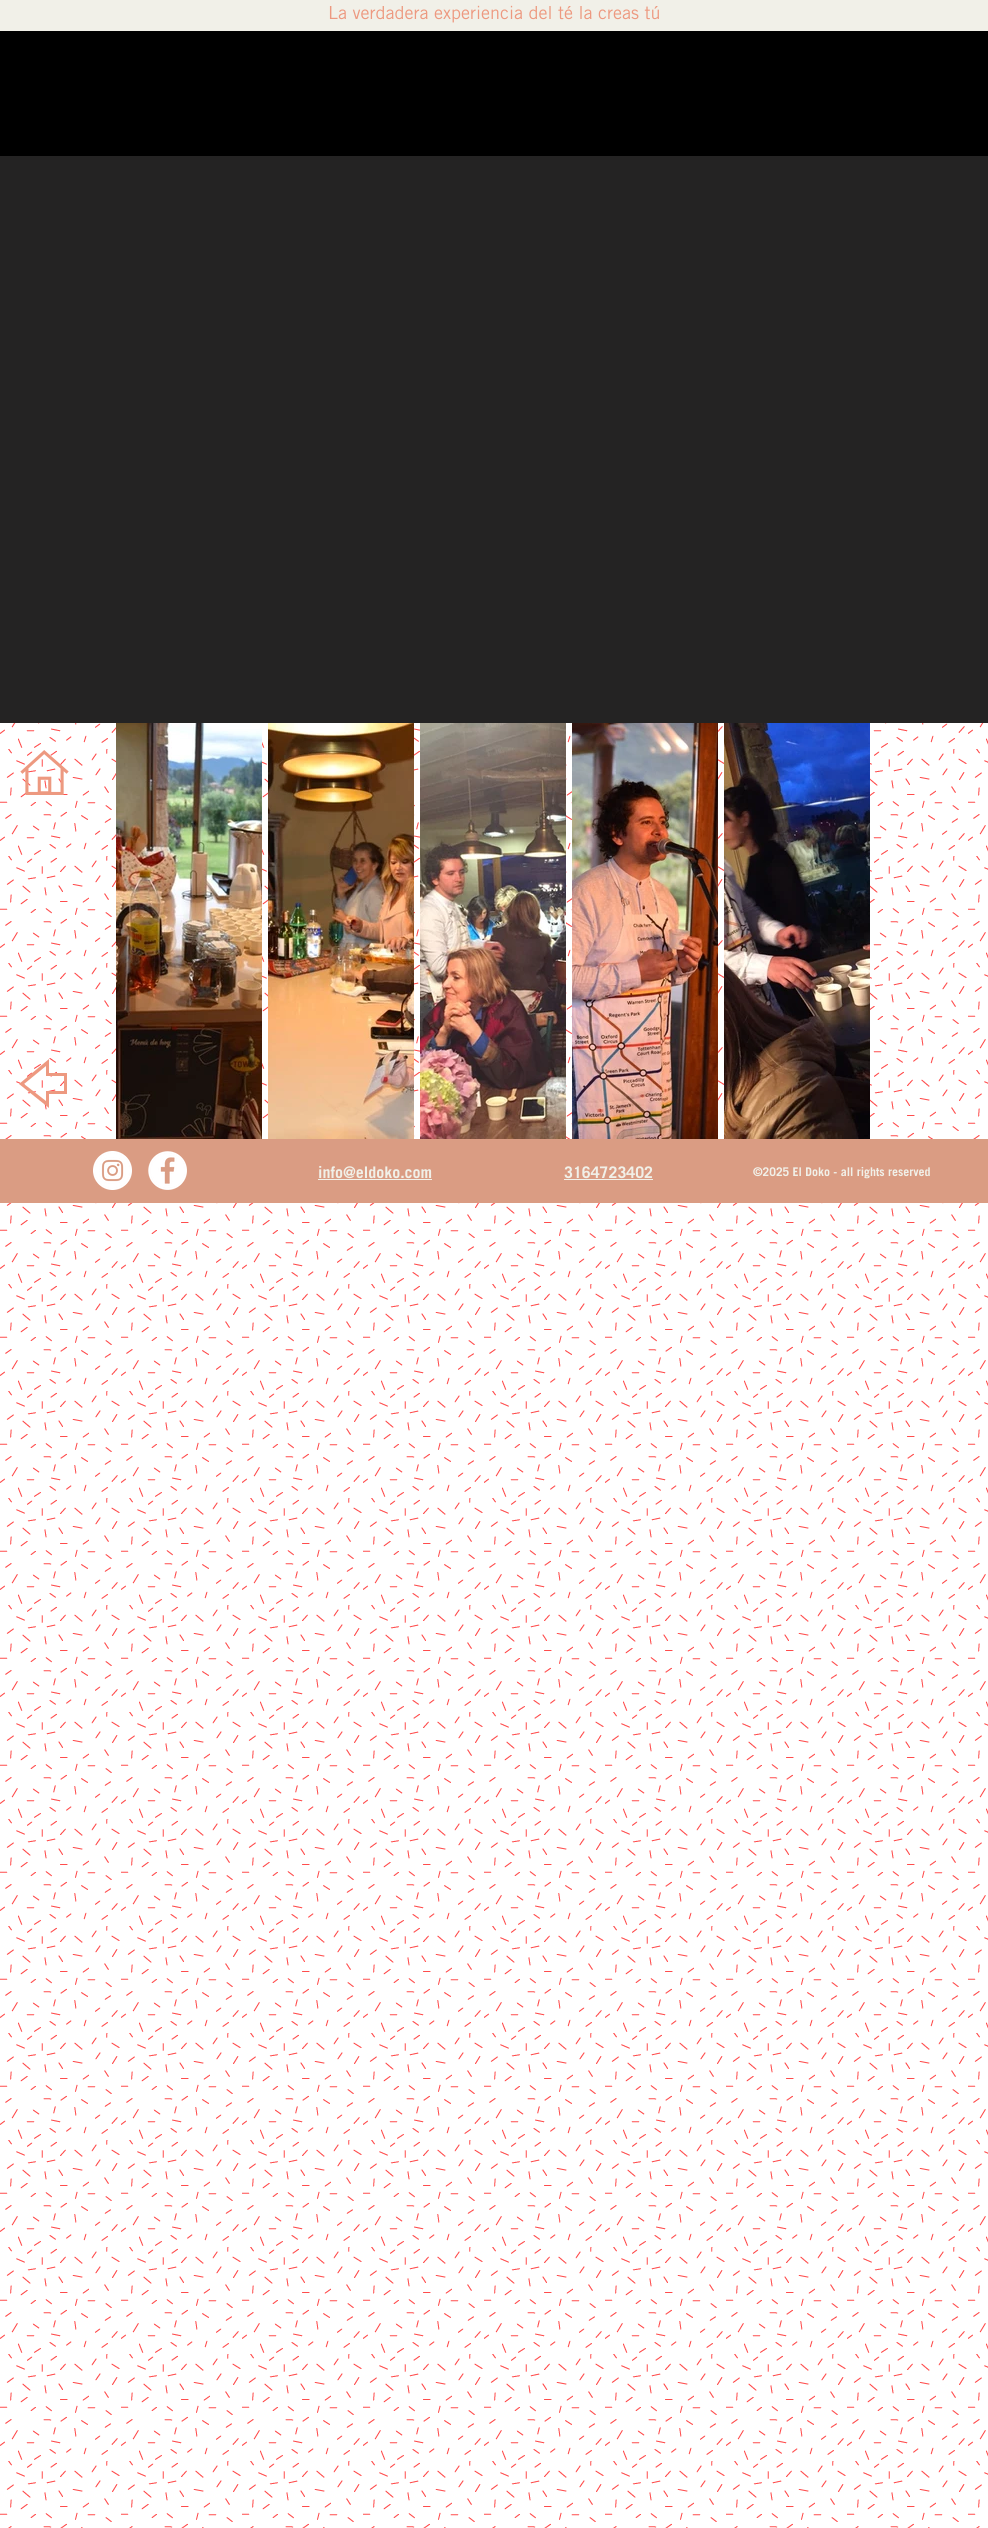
#include <cairo/cairo.h>
#include <math.h>
#include <stddef.h>

typedef struct { double x, y, w, h; unsigned color; } box_t;
static cairo_t *cr;

static void rgb(unsigned color)
{
	cairo_set_source_rgb(cr, (color >> 16) / 255.0, (color >> 8 & 255) / 255.0, (color & 255) / 255.0);
}

static void image(const char *path, double x, double y, double w, double h)
{
	cairo_surface_t *image = cairo_image_surface_create_from_png(path);
	cairo_save(cr);
	cairo_set_source_surface(cr, image, x, y);
	cairo_rectangle(cr, x, y, w, h);
	cairo_fill(cr);
	cairo_restore(cr);
	cairo_surface_destroy(image);
}

int main(void) {
	cairo_surface_t *surface = cairo_image_surface_create(CAIRO_FORMAT_RGB24, 988, 2528);
	cr = cairo_create(surface);
	cairo_font_options_t *options = cairo_font_options_create();
	cairo_font_options_set_hint_metrics(options, CAIRO_HINT_METRICS_OFF);
	cairo_font_options_set_hint_style(options, CAIRO_HINT_STYLE_NONE);
	cairo_set_font_options(cr, options);
	cairo_set_miter_limit(cr, 4);
	rgb(0xffffff);
	cairo_paint(cr);
	{
		static const box_t items[] = {
			{0, 0, 988, 31, 0xf1f0e8},
			{0, 31, 988, 125, 0x000000},
			{0, 156, 988, 567, 0x242323},
		};
		for (size_t i = 0; i < sizeof items / sizeof *items; i++) {
			rgb(items[i].color);
			cairo_rectangle(cr, items[i].x, items[i].y, items[i].w, items[i].h);
			cairo_fill(cr);
		}
	}
	image("img/9.png", 0, 723, 988, 1805);
	image("img/1.png", 20, 750, 49, 45);
	image("img/2.png", 116, 723, 146, 416);
	image("img/3.png", 268, 723, 146, 416);
	image("img/4.png", 420, 723, 146, 416);
	image("img/5.png", 572, 723, 146, 416);
	image("img/6.png", 724, 723, 146, 416);
	rgb(0xed9980);
	cairo_new_path(cr);
	cairo_move_to(cr, 49, 1059);
	cairo_line_to(cr, 49, 1073);
	cairo_line_to(cr, 67, 1073);
	cairo_line_to(cr, 67, 1094);
	cairo_line_to(cr, 49, 1094);
	cairo_line_to(cr, 49, 1108);
	cairo_line_to(cr, 19, 1084);
	cairo_close_path(cr);
	cairo_move_to(cr, 64, 1076);
	cairo_line_to(cr, 46, 1076);
	cairo_line_to(cr, 46, 1066);
	cairo_line_to(cr, 24, 1084);
	cairo_line_to(cr, 46, 1101);
	cairo_line_to(cr, 46, 1091);
	cairo_line_to(cr, 64, 1091);
	cairo_close_path(cr);
	cairo_fill(cr);
	rgb(0xda9c83);
	cairo_rectangle(cr, 0, 1139, 988, 64);
	cairo_fill(cr);
	image("img/7.png", 93, 1151, 39, 39);
	image("img/8.png", 148, 1151, 39, 39);
	rgb(0xf1f0e8);
	cairo_rectangle(cr, 318, 1179, 114, 1);
	cairo_fill(cr);
	cairo_rectangle(cr, 564, 1179, 89, 1);
	cairo_fill(cr);
	cairo_select_font_face(cr, "Trade Gothic", CAIRO_FONT_SLANT_NORMAL, CAIRO_FONT_WEIGHT_NORMAL);
	cairo_set_font_size(cr, 18);
	rgb(0xed9980);
	cairo_move_to(cr, 328, 19);
	cairo_show_text(cr, "La verdadera experiencia del té la creas tú");
	cairo_select_font_face(cr, "Trade Gothic", CAIRO_FONT_SLANT_NORMAL, CAIRO_FONT_WEIGHT_BOLD);
	cairo_set_font_size(cr, 16);
	rgb(0xf1f0e8);
	cairo_move_to(cr, 318, 1178);
	cairo_show_text(cr, "info@eldoko.com");
	cairo_move_to(cr, 564, 1178);
	cairo_show_text(cr, "3164723402");
	cairo_set_font_size(cr, 12);
	cairo_move_to(cr, 753, 1176);
	cairo_show_text(cr, "©2025 El Doko - all rights reserved");
	cairo_surface_write_to_png(surface, "page.png");
	cairo_font_options_destroy(options);
	cairo_destroy(cr);
	cairo_surface_destroy(surface);
	return 0;
}
